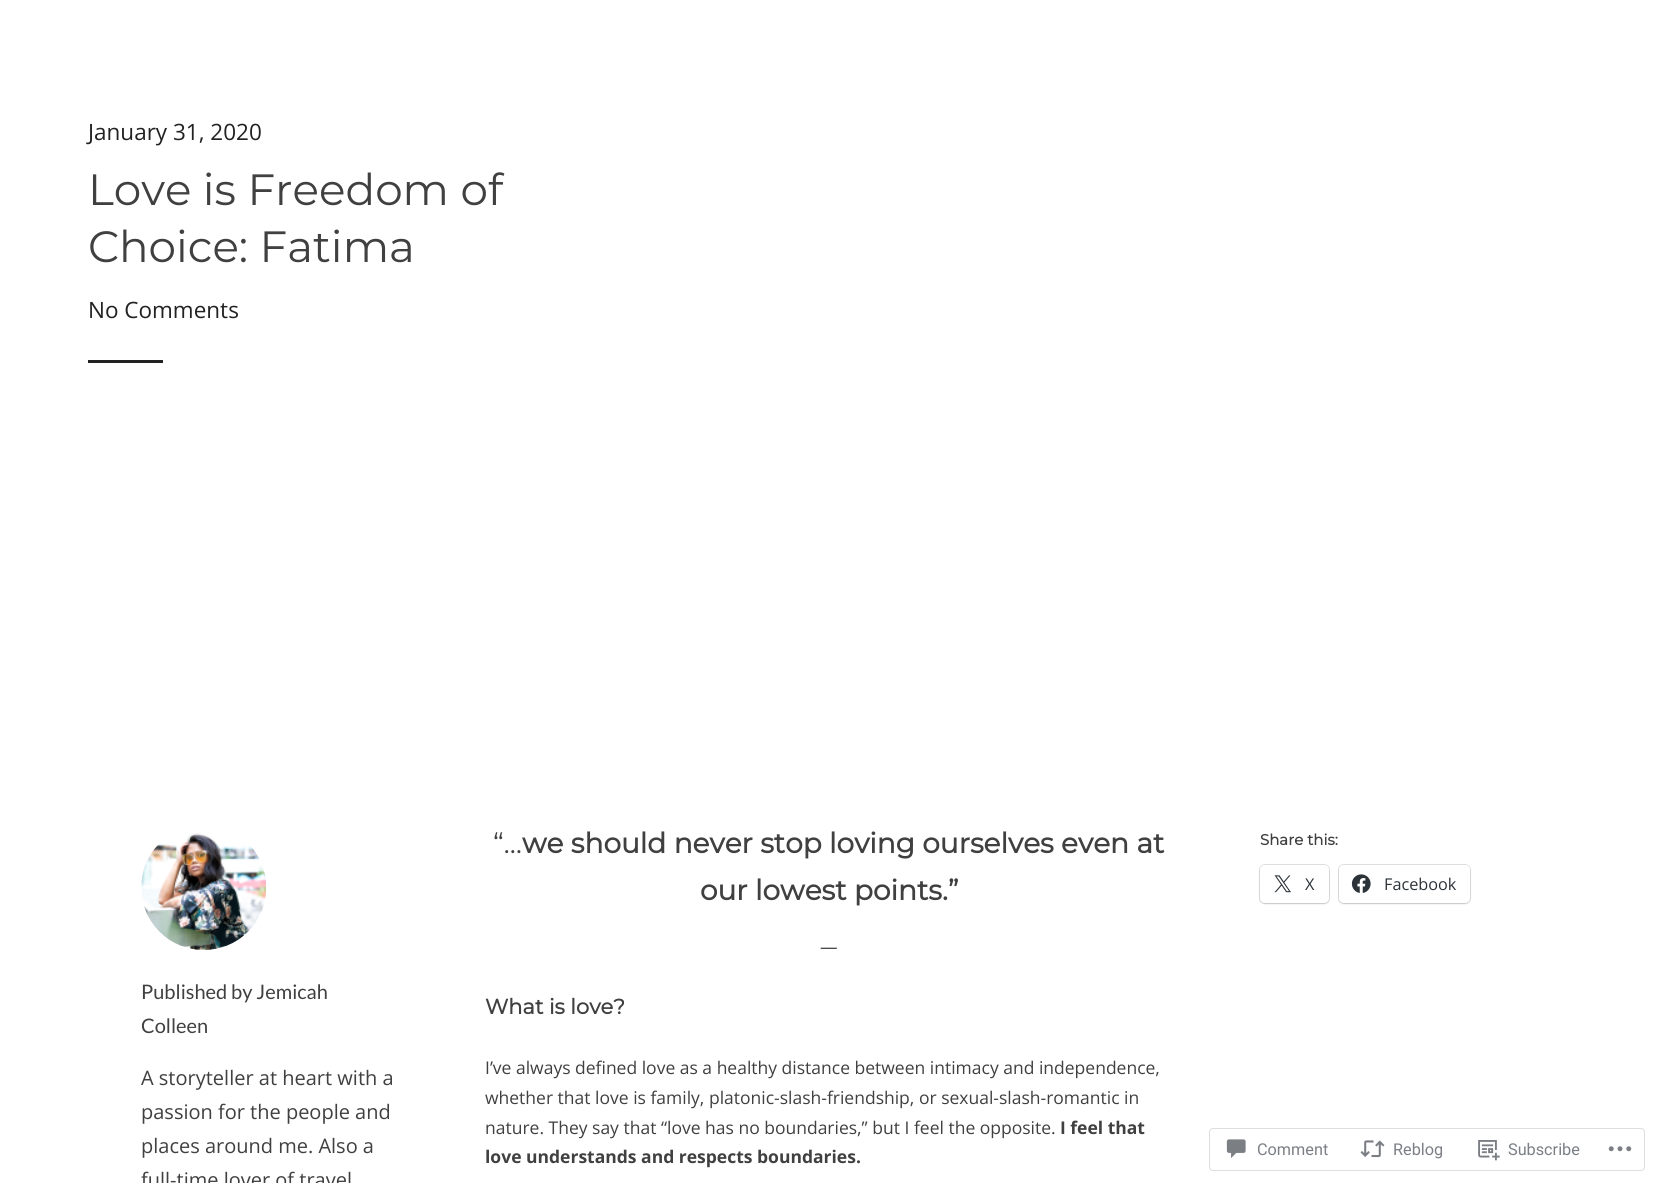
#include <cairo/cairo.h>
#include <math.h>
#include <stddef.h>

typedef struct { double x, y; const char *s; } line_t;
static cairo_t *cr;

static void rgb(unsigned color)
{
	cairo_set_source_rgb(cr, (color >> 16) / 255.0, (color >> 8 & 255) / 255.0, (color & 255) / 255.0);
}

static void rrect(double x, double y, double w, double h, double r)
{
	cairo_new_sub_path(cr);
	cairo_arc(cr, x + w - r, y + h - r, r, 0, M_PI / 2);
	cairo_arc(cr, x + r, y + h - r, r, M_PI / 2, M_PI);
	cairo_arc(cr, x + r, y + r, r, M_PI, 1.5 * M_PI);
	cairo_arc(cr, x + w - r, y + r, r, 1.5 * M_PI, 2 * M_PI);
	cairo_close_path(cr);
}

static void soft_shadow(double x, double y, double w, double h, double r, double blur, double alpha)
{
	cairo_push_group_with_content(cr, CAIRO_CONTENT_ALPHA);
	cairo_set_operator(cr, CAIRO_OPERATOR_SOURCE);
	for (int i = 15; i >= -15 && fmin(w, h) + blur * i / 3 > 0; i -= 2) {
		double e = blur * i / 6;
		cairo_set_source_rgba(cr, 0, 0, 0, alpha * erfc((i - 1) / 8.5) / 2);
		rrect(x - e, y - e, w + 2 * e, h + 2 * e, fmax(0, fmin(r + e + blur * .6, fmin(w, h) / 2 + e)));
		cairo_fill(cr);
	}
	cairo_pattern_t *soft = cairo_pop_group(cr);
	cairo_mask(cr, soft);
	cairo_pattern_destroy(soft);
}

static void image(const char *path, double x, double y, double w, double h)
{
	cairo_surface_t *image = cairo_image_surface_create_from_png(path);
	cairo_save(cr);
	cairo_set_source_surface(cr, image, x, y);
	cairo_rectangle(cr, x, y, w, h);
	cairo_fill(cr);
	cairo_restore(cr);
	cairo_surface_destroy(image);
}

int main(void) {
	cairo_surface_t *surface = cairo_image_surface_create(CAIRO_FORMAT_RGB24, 1657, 1183);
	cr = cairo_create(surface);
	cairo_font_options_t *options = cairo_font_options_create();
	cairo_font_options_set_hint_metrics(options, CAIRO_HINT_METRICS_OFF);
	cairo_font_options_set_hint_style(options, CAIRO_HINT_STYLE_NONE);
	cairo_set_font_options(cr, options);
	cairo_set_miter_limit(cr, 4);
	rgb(0xffffff);
	cairo_paint(cr);
	rgb(0x222222);
	cairo_rectangle(cr, 88, 360, 75, 3);
	cairo_fill(cr);
	rrect(1259.5, 864.5, 70, 39, 5.5);
	rgb(0xe0e0e0);
	cairo_set_line_width(cr, 1);
	cairo_stroke(cr);
	rgb(0x000000);
	soft_shadow(1260, 866, 69, 38, 5, 1, 0.12);
	rgb(0xffffff);
	rrect(1260, 865, 69, 38, 5);
	cairo_fill(cr);
	image("img/1.png", 1274, 875, 17, 18);
	rrect(1338.5, 864.5, 132, 39, 5.5);
	rgb(0xe0e0e0);
	cairo_stroke(cr);
	rgb(0x000000);
	soft_shadow(1339, 866, 131, 38, 5, 1, 0.12);
	rgb(0xffffff);
	rrect(1339, 865, 131, 38, 5);
	cairo_fill(cr);
	image("img/2.png", 1351, 874, 20, 19);
	image("img/3.png", 141, 833, 126, 117);
	rrect(1209.5, 1128.5, 435, 42, 3.5);
	rgb(0xdddddf);
	cairo_stroke(cr);
	image("img/4.png", 1226, 1139, 20, 19);
	image("img/5.png", 1360, 1140, 25, 18);
	image("img/6.png", 1478, 1140, 22, 21);
	image("img/7.png", 1608, 1146, 24, 6);
	cairo_select_font_face(cr, "Open Sans", CAIRO_FONT_SLANT_NORMAL, CAIRO_FONT_WEIGHT_NORMAL);
	cairo_set_font_size(cr, 22.5);
	rgb(0x222222);
	cairo_move_to(cr, 88, 140);
	cairo_show_text(cr, "January 31, 2020");
	cairo_select_font_face(cr, "Montserrat Thin", CAIRO_FONT_SLANT_NORMAL, CAIRO_FONT_WEIGHT_NORMAL);
	cairo_set_font_size(cr, 43.75);
	rgb(0x404040);
	cairo_move_to(cr, 88, 205);
	cairo_show_text(cr, "Love is Freedom of");
	cairo_move_to(cr, 88, 262);
	cairo_show_text(cr, "Choice: Fatima");
	cairo_select_font_face(cr, "Open Sans", CAIRO_FONT_SLANT_NORMAL, CAIRO_FONT_WEIGHT_NORMAL);
	cairo_set_font_size(cr, 22.5);
	rgb(0x222222);
	cairo_move_to(cr, 88, 318);
	cairo_show_text(cr, "No Comments");
	cairo_select_font_face(cr, "Montserrat Thin", CAIRO_FONT_SLANT_NORMAL, CAIRO_FONT_WEIGHT_NORMAL);
	cairo_set_font_size(cr, 28);
	rgb(0x404040);
	cairo_move_to(cr, 493, 853);
	cairo_show_text(cr, "“…");
	cairo_select_font_face(cr, "Montserrat", CAIRO_FONT_SLANT_NORMAL, CAIRO_FONT_WEIGHT_BOLD);
	cairo_move_to(cr, 522, 853);
	cairo_show_text(cr, "we should never stop loving ourselves even at");
	cairo_move_to(cr, 700, 900);
	cairo_show_text(cr, "our lowest points.”");
	cairo_select_font_face(cr, "Open Sans", CAIRO_FONT_SLANT_NORMAL, CAIRO_FONT_WEIGHT_NORMAL);
	cairo_set_font_size(cr, 17.5);
	cairo_move_to(cr, 820, 953);
	cairo_show_text(cr, "—");
	cairo_select_font_face(cr, "Montserrat", CAIRO_FONT_SLANT_NORMAL, CAIRO_FONT_WEIGHT_BOLD);
	cairo_set_font_size(cr, 21);
	cairo_move_to(cr, 485, 1014);
	cairo_show_text(cr, "What is love?");
	cairo_select_font_face(cr, "Open Sans", CAIRO_FONT_SLANT_NORMAL, CAIRO_FONT_WEIGHT_NORMAL);
	cairo_set_font_size(cr, 17.5);
	{
		static const line_t items[] = {
			{485, 1074, "I’ve always defined love as a healthy distance between intimacy and independence,"},
			{485, 1104, "whether that love is family, platonic-slash-friendship, or sexual-slash-romantic in"},
			{485, 1134, "nature. They say that “love has no boundaries,” but I feel the opposite."},
		};
		for (size_t i = 0; i < sizeof items / sizeof *items; i++) {
			cairo_move_to(cr, items[i].x, items[i].y);
			cairo_show_text(cr, items[i].s);
		}
	}
	cairo_select_font_face(cr, "Open Sans", CAIRO_FONT_SLANT_NORMAL, CAIRO_FONT_WEIGHT_BOLD);
	cairo_move_to(cr, 1060, 1134);
	cairo_show_text(cr, "I feel that");
	cairo_move_to(cr, 485, 1163);
	cairo_show_text(cr, "love understands and respects boundaries.");
	cairo_select_font_face(cr, "Montserrat", CAIRO_FONT_SLANT_NORMAL, CAIRO_FONT_WEIGHT_BOLD);
	cairo_set_font_size(cr, 15);
	cairo_move_to(cr, 1260, 845);
	cairo_show_text(cr, "Share this:");
	cairo_select_font_face(cr, "Open Sans", CAIRO_FONT_SLANT_NORMAL, CAIRO_FONT_WEIGHT_NORMAL);
	cairo_set_font_size(cr, 16.25);
	rgb(0x2c3338);
	cairo_move_to(cr, 1305, 890);
	cairo_show_text(cr, "X");
	cairo_move_to(cr, 1384, 890);
	cairo_show_text(cr, "Facebook");
	cairo_select_font_face(cr, "Lato", CAIRO_FONT_SLANT_NORMAL, CAIRO_FONT_WEIGHT_NORMAL);
	cairo_set_font_size(cr, 20);
	rgb(0x404040);
	cairo_move_to(cr, 141, 999);
	cairo_show_text(cr, "Published by Jemicah");
	cairo_move_to(cr, 141, 1033);
	cairo_show_text(cr, "Colleen");
	cairo_select_font_face(cr, "Open Sans", CAIRO_FONT_SLANT_NORMAL, CAIRO_FONT_WEIGHT_NORMAL);
	{
		static const line_t items[] = {
			{141, 1085, "A storyteller at heart with a"},
			{141, 1119, "passion for the people and"},
			{141, 1153, "places around me. Also a"},
			{141, 1187, "full-time lover of travel"},
		};
		for (size_t i = 0; i < sizeof items / sizeof *items; i++) {
			cairo_move_to(cr, items[i].x, items[i].y);
			cairo_show_text(cr, items[i].s);
		}
	}
	cairo_select_font_face(cr, "Roboto", CAIRO_FONT_SLANT_NORMAL, CAIRO_FONT_WEIGHT_NORMAL);
	cairo_set_font_size(cr, 16.25);
	rgb(0x7b7f85);
	{
		static const line_t items[] = {
			{1257, 1155, "Comment"},
			{1393, 1155, "Reblog"},
			{1508, 1155, "Subscribe"},
		};
		for (size_t i = 0; i < sizeof items / sizeof *items; i++) {
			cairo_move_to(cr, items[i].x, items[i].y);
			cairo_show_text(cr, items[i].s);
		}
	}
	cairo_surface_write_to_png(surface, "page.png");
	cairo_font_options_destroy(options);
	cairo_destroy(cr);
	cairo_surface_destroy(surface);
	return 0;
}
